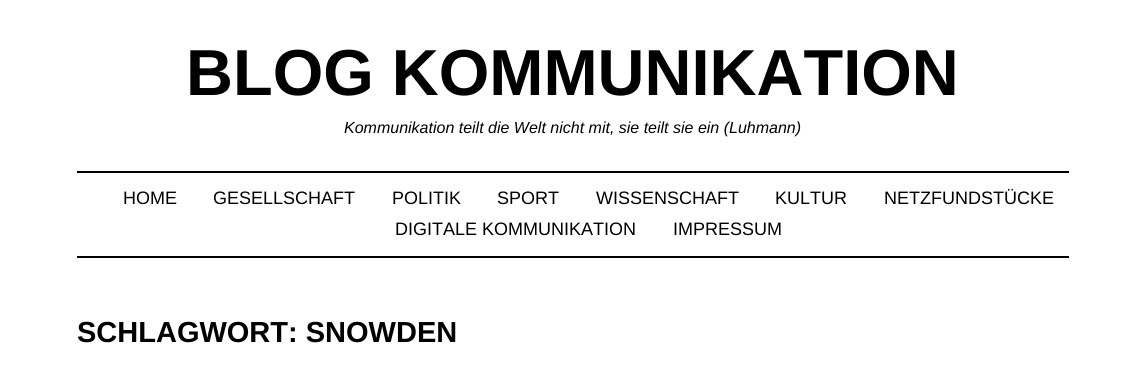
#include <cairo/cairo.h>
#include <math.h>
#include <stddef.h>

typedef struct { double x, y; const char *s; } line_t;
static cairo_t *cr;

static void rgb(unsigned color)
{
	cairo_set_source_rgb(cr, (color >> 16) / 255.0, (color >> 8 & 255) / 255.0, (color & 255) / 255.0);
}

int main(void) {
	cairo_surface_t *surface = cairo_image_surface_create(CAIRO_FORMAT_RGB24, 1145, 369);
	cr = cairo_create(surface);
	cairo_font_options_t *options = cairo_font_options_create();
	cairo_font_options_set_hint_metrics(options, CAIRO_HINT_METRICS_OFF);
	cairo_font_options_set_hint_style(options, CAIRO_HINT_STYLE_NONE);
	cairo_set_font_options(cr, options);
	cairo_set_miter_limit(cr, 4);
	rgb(0xffffff);
	cairo_paint(cr);
	rgb(0x000000);
	cairo_rectangle(cr, 77, 171, 992, 2);
	cairo_fill(cr);
	cairo_rectangle(cr, 77, 256, 992, 2);
	cairo_fill(cr);
	cairo_select_font_face(cr, "Liberation Sans", CAIRO_FONT_SLANT_NORMAL, CAIRO_FONT_WEIGHT_BOLD);
	cairo_set_font_size(cr, 65);
	cairo_move_to(cr, 186, 95);
	cairo_show_text(cr, "BLOG KOMMUNIKATION");
	cairo_select_font_face(cr, "Liberation Sans", CAIRO_FONT_SLANT_ITALIC, CAIRO_FONT_WEIGHT_NORMAL);
	cairo_set_font_size(cr, 16);
	cairo_move_to(cr, 344, 133);
	cairo_show_text(cr, "Kommunikation teilt die Welt nicht mit, sie teilt sie ein (Luhmann)");
	cairo_select_font_face(cr, "Liberation Sans", CAIRO_FONT_SLANT_NORMAL, CAIRO_FONT_WEIGHT_NORMAL);
	cairo_set_font_size(cr, 18);
	{
		static const line_t items[] = {
			{123, 204, "HOME"},
			{213, 204, "GESELLSCHAFT"},
			{392, 204, "POLITIK"},
			{497, 204, "SPORT"},
			{596, 204, "WISSENSCHAFT"},
			{775, 204, "KULTUR"},
			{884, 204, "NETZFUNDSTÜCKE"},
			{395, 235, "DIGITALE KOMMUNIKATION"},
			{673, 235, "IMPRESSUM"},
		};
		for (size_t i = 0; i < sizeof items / sizeof *items; i++) {
			cairo_move_to(cr, items[i].x, items[i].y);
			cairo_show_text(cr, items[i].s);
		}
	}
	cairo_select_font_face(cr, "Liberation Sans", CAIRO_FONT_SLANT_NORMAL, CAIRO_FONT_WEIGHT_BOLD);
	cairo_set_font_size(cr, 29);
	cairo_move_to(cr, 77, 342);
	cairo_show_text(cr, "SCHLAGWORT: SNOWDEN");
	cairo_surface_write_to_png(surface, "page.png");
	cairo_font_options_destroy(options);
	cairo_destroy(cr);
	cairo_surface_destroy(surface);
	return 0;
}
